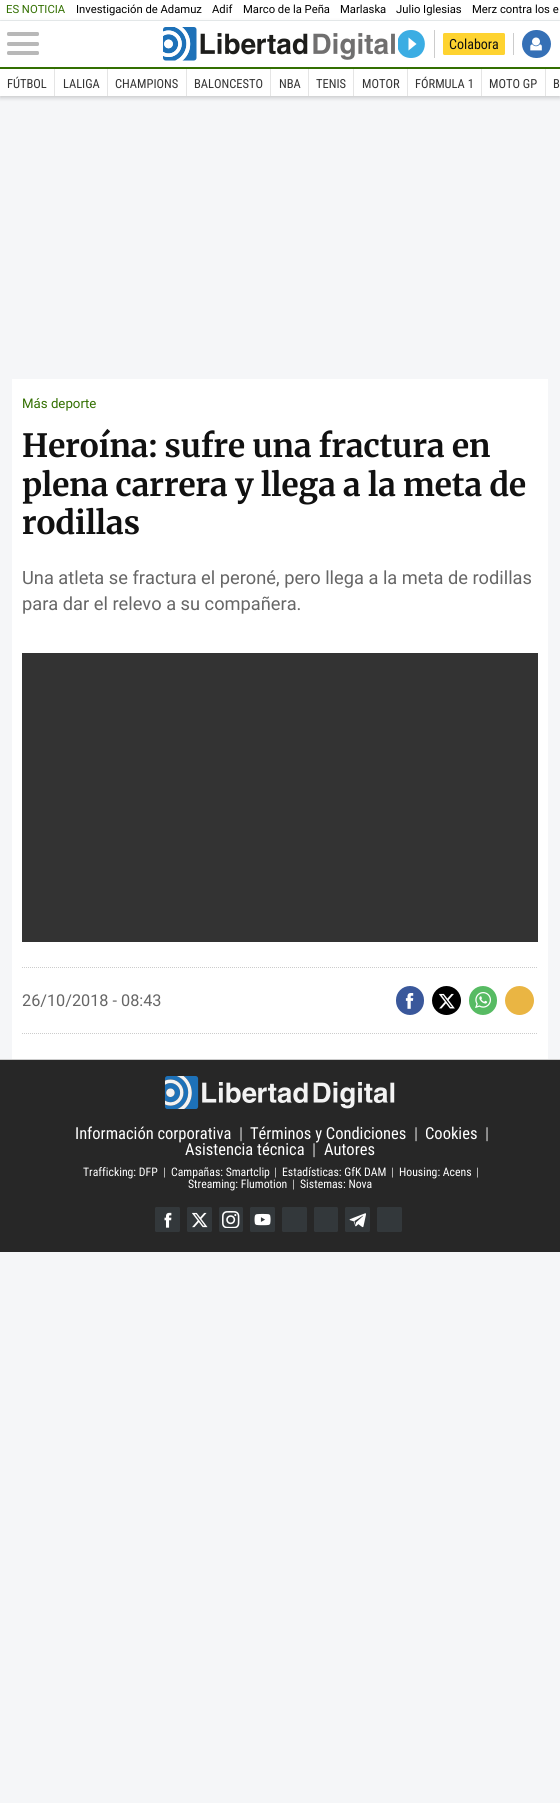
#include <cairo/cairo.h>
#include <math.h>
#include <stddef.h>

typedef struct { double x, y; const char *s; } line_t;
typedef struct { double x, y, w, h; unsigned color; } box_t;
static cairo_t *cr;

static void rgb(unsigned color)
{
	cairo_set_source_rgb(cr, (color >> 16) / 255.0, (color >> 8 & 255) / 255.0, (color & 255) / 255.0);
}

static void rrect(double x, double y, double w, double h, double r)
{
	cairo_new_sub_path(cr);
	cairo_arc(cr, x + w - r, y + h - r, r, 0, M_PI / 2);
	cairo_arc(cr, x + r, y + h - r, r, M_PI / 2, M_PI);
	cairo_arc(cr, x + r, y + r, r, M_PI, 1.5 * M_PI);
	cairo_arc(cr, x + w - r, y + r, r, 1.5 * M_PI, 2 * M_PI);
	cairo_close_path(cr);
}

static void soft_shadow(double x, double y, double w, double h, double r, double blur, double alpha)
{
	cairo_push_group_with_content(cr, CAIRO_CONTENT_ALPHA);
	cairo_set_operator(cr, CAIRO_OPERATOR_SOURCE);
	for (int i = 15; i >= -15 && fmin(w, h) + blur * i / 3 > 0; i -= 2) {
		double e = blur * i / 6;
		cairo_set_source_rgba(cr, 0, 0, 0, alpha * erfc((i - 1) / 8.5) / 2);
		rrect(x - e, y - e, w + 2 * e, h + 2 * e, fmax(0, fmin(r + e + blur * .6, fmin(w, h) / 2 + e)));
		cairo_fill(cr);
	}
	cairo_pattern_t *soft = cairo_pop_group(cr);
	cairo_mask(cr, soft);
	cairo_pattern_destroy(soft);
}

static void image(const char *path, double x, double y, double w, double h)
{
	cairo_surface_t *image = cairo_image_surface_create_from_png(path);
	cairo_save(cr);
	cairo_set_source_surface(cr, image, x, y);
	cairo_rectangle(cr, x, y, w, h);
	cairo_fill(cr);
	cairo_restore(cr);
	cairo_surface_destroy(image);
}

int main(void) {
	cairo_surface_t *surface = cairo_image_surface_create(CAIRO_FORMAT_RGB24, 560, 1803);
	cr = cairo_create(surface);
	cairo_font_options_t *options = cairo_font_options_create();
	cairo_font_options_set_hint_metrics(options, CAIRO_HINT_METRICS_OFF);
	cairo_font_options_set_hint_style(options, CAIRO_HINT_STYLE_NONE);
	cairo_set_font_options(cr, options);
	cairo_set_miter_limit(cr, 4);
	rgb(0xf5f6f8);
	cairo_paint(cr);
	rgb(0xffffff);
	cairo_rectangle(cr, 0, 0, 560, 20);
	cairo_fill(cr);
	rgb(0xecf0f1);
	cairo_rectangle(cr, 0, 20, 560, 1);
	cairo_fill(cr);
	rgb(0x323232);
	soft_shadow(0, 23, 560, 48, 0, 2, 0.44);
	rgb(0xffffff);
	cairo_rectangle(cr, 0, 21, 560, 46);
	cairo_fill(cr);
	rgb(0x337001);
	cairo_rectangle(cr, 0, 67, 560, 2);
	cairo_fill(cr);
	rgb(0xb8b8b8);
	rrect(7, 32, 32, 4, 1.5);
	cairo_fill(cr);
	rrect(7, 42, 32, 4, 1.5);
	cairo_fill(cr);
	rrect(7, 51, 32, 4, 1.5);
	cairo_fill(cr);
	image("img/1.png", 163, 27, 232, 34);
	rgb(0xcccccc);
	cairo_rectangle(cr, 434, 30, 1, 28);
	cairo_fill(cr);
	cairo_save(cr);
	cairo_rectangle(cr, 398, 30, 27, 28);
	cairo_clip(cr);
	rgb(0x3bade3);
	cairo_new_path(cr);
	cairo_move_to(cr, 411, 30);
	cairo_curve_to(cr, 392.5, 30, 392.5, 58, 411, 58);
	cairo_curve_to(cr, 429.5, 58, 429.5, 30, 411, 30);
	cairo_close_path(cr);
	cairo_move_to(cr, 408.5, 50.5);
	cairo_line_to(cr, 408.5, 37.5);
	cairo_line_to(cr, 416.5, 44);
	cairo_close_path(cr);
	cairo_fill(cr);
	cairo_restore(cr);
	cairo_rectangle(cr, 513, 33, 1, 22);
	cairo_fill(cr);
	rgb(0xfed330);
	rrect(443, 33, 62, 22, 1.5);
	cairo_fill(cr);
	rgb(0x3570b6);
	rrect(522, 30, 29, 28, 14);
	cairo_fill(cr);
	image("img/2.png", 530, 37, 12, 14);
	rgb(0x323232);
	soft_shadow(0, 71, 560, 27, 0, 2, 0.22);
	{
		static const box_t items[] = {
			{0, 69, 560, 27, 0xffffff},
			{54, 69, 1, 27, 0xe5e5e5},
			{107, 69, 1, 27, 0xe5e5e5},
			{186, 69, 1, 27, 0xe5e5e5},
			{270, 69, 1, 27, 0xe5e5e5},
			{308, 69, 1, 27, 0xe5e5e5},
			{353, 69, 1, 27, 0xe5e5e5},
			{407, 69, 1, 27, 0xe5e5e5},
			{481, 69, 1, 27, 0xe5e5e5},
			{545, 69, 1, 27, 0xe5e5e5},
			{12, 379, 536, 680, 0xffffff},
			{22, 653, 516, 289, 0x333333},
		};
		for (size_t i = 0; i < sizeof items / sizeof *items; i++) {
			rgb(items[i].color);
			cairo_rectangle(cr, items[i].x, items[i].y, items[i].w, items[i].h);
			cairo_fill(cr);
		}
	}
	cairo_new_path(cr);
	cairo_move_to(cr, 22, 967.5);
	cairo_line_to(cr, 538, 967.5);
	rgb(0xcccccc);
	cairo_set_line_width(cr, 1);
	cairo_set_dash(cr, (double[]){1, 1}, 2, 0);
	cairo_stroke(cr);
	cairo_new_path(cr);
	cairo_move_to(cr, 22, 1033.5);
	cairo_line_to(cr, 538, 1033.5);
	cairo_stroke(cr);
	rgb(0x3a589b);
	rrect(396, 986, 28, 29, 14);
	cairo_fill(cr);
	image("img/3.png", 405, 993, 9, 16);
	rgb(0x000000);
	cairo_arc(cr, 446.5, 1000.5, 14.5, 0, 2 * M_PI);
	cairo_fill(cr);
	image("img/4.png", 439, 993, 16, 16);
	rgb(0x57bb63);
	rrect(469, 986, 28, 29, 14);
	cairo_fill(cr);
	image("img/5.png", 475, 992, 16, 16);
	rgb(0xeab543);
	cairo_arc(cr, 519.5, 1000.5, 14.5, 0, 2 * M_PI);
	cairo_fill(cr);
	rgb(0x272727);
	cairo_rectangle(cr, 0, 1060, 560, 192);
	cairo_fill(cr);
	rgb(0xcccccc);
	cairo_rectangle(cr, 0, 1059, 560, 1);
	cairo_fill(cr);
	image("img/6.png", 164, 1076, 231, 33);
	rgb(0x33383b);
	rrect(155, 1207, 25, 25, 1.5);
	cairo_fill(cr);
	image("img/7.png", 164, 1212, 8, 16);
	rrect(187, 1207, 25, 25, 1.5);
	cairo_fill(cr);
	image("img/8.png", 192, 1212, 16, 16);
	rrect(219, 1207, 24, 25, 1.5);
	cairo_fill(cr);
	image("img/9.png", 222, 1211, 18, 17);
	rrect(250, 1207, 25, 25, 1.5);
	cairo_fill(cr);
	image("img/10.png", 254, 1213, 17, 13);
	rrect(282, 1207, 25, 25, 1.5);
	cairo_fill(cr);
	rrect(314, 1207, 24, 25, 1.5);
	cairo_fill(cr);
	rrect(345, 1207, 25, 25, 1.5);
	cairo_fill(cr);
	image("img/11.png", 349, 1213, 17, 15);
	rrect(377, 1207, 25, 25, 1.5);
	cairo_fill(cr);
	cairo_select_font_face(cr, "Roboto", CAIRO_FONT_SLANT_NORMAL, CAIRO_FONT_WEIGHT_NORMAL);
	cairo_set_font_size(cr, 11.25);
	rgb(0x337001);
	cairo_move_to(cr, 6, 13);
	cairo_show_text(cr, "ES NOTICIA");
	rgb(0x000000);
	{
		static const line_t items[] = {
			{76, 13, "Investigación de Adamuz"},
			{212, 13, "Adif"},
			{243, 13, "Marco de la Peña"},
			{340, 13, "Marlaska"},
			{396, 13, "Julio Iglesias"},
			{472, 13, "Merz contra los e"},
		};
		for (size_t i = 0; i < sizeof items / sizeof *items; i++) {
			cairo_move_to(cr, items[i].x, items[i].y);
			cairo_show_text(cr, items[i].s);
		}
	}
	cairo_select_font_face(cr, "Roboto Condensed", CAIRO_FONT_SLANT_NORMAL, CAIRO_FONT_WEIGHT_NORMAL);
	cairo_set_font_size(cr, 14);
	rgb(0x111111);
	cairo_move_to(cr, 449, 49);
	cairo_show_text(cr, "Colabora");
	cairo_set_font_size(cr, 12.5);
	rgb(0x333333);
	{
		static const line_t items[] = {
			{7, 88, "FÚTBOL"},
			{63, 88, "LALIGA"},
			{115, 88, "CHAMPIONS"},
			{194, 88, "BALONCESTO"},
			{279, 88, "NBA"},
			{316, 88, "TENIS"},
			{362, 88, "MOTOR"},
			{415, 88, "FÓRMULA 1"},
			{489, 88, "MOTO GP"},
			{553, 88, "B"},
		};
		for (size_t i = 0; i < sizeof items / sizeof *items; i++) {
			cairo_move_to(cr, items[i].x, items[i].y);
			cairo_show_text(cr, items[i].s);
		}
	}
	cairo_select_font_face(cr, "Roboto", CAIRO_FONT_SLANT_NORMAL, CAIRO_FONT_WEIGHT_NORMAL);
	cairo_set_font_size(cr, 13.25);
	rgb(0x337001);
	cairo_move_to(cr, 22, 408);
	cairo_show_text(cr, "Más deporte");
	cairo_select_font_face(cr, "Merriweather", CAIRO_FONT_SLANT_NORMAL, CAIRO_FONT_WEIGHT_BOLD);
	cairo_set_font_size(cr, 32);
	rgb(0x111111);
	{
		static const line_t items[] = {
			{22, 457, "Heroína: sufre una fractura en"},
			{22, 496, "plena carrera y llega a la meta de"},
			{22, 534, "rodillas"},
		};
		for (size_t i = 0; i < sizeof items / sizeof *items; i++) {
			cairo_move_to(cr, items[i].x, items[i].y);
			cairo_show_text(cr, items[i].s);
		}
	}
	cairo_select_font_face(cr, "Roboto", CAIRO_FONT_SLANT_NORMAL, CAIRO_FONT_WEIGHT_NORMAL);
	cairo_set_font_size(cr, 18.25);
	rgb(0x666666);
	cairo_move_to(cr, 22, 584);
	cairo_show_text(cr, "Una atleta se fractura el peroné, pero llega a la meta de rodillas");
	cairo_move_to(cr, 22, 610);
	cairo_show_text(cr, "para dar el relevo a su compañera.");
	cairo_set_font_size(cr, 16.25);
	cairo_move_to(cr, 22, 1006);
	cairo_show_text(cr, "26/10/2018 - 08:43");
	cairo_select_font_face(cr, "Roboto Condensed", CAIRO_FONT_SLANT_NORMAL, CAIRO_FONT_WEIGHT_NORMAL);
	cairo_set_font_size(cr, 16.5);
	rgb(0xffffff);
	cairo_move_to(cr, 75, 1139);
	cairo_show_text(cr, "Información corporativa");
	rgb(0xcccccc);
	cairo_move_to(cr, 239, 1139);
	cairo_show_text(cr, "|");
	rgb(0xffffff);
	cairo_move_to(cr, 250, 1139);
	cairo_show_text(cr, "Términos y Condiciones");
	rgb(0xcccccc);
	cairo_move_to(cr, 414, 1139);
	cairo_show_text(cr, "|");
	rgb(0xffffff);
	cairo_move_to(cr, 425, 1139);
	cairo_show_text(cr, "Cookies");
	rgb(0xcccccc);
	cairo_move_to(cr, 485, 1139);
	cairo_show_text(cr, "|");
	rgb(0xffffff);
	cairo_move_to(cr, 185, 1155);
	cairo_show_text(cr, "Asistencia técnica");
	rgb(0xcccccc);
	cairo_move_to(cr, 312, 1155);
	cairo_show_text(cr, "|");
	rgb(0xffffff);
	cairo_move_to(cr, 324, 1155);
	cairo_show_text(cr, "Autores");
	cairo_set_font_size(cr, 11.75);
	cairo_move_to(cr, 83, 1176);
	cairo_show_text(cr, "Trafficking: DFP");
	rgb(0xcccccc);
	cairo_move_to(cr, 163, 1176);
	cairo_show_text(cr, "|");
	rgb(0xffffff);
	cairo_move_to(cr, 171, 1176);
	cairo_show_text(cr, "Campañas: Smartclip");
	rgb(0xcccccc);
	cairo_move_to(cr, 274, 1176);
	cairo_show_text(cr, "|");
	rgb(0xffffff);
	cairo_move_to(cr, 282, 1176);
	cairo_show_text(cr, "Estadísticas: GfK DAM");
	rgb(0xcccccc);
	cairo_move_to(cr, 391, 1176);
	cairo_show_text(cr, "|");
	rgb(0xffffff);
	cairo_move_to(cr, 399, 1176);
	cairo_show_text(cr, "Housing: Acens");
	rgb(0xcccccc);
	cairo_move_to(cr, 476, 1176);
	cairo_show_text(cr, "|");
	rgb(0xffffff);
	cairo_move_to(cr, 188, 1188);
	cairo_show_text(cr, "Streaming: Flumotion");
	rgb(0xcccccc);
	cairo_move_to(cr, 292, 1188);
	cairo_show_text(cr, "|");
	rgb(0xffffff);
	cairo_move_to(cr, 300, 1188);
	cairo_show_text(cr, "Sistemas: Nova");
	cairo_surface_write_to_png(surface, "page.png");
	cairo_font_options_destroy(options);
	cairo_destroy(cr);
	cairo_surface_destroy(surface);
	return 0;
}
